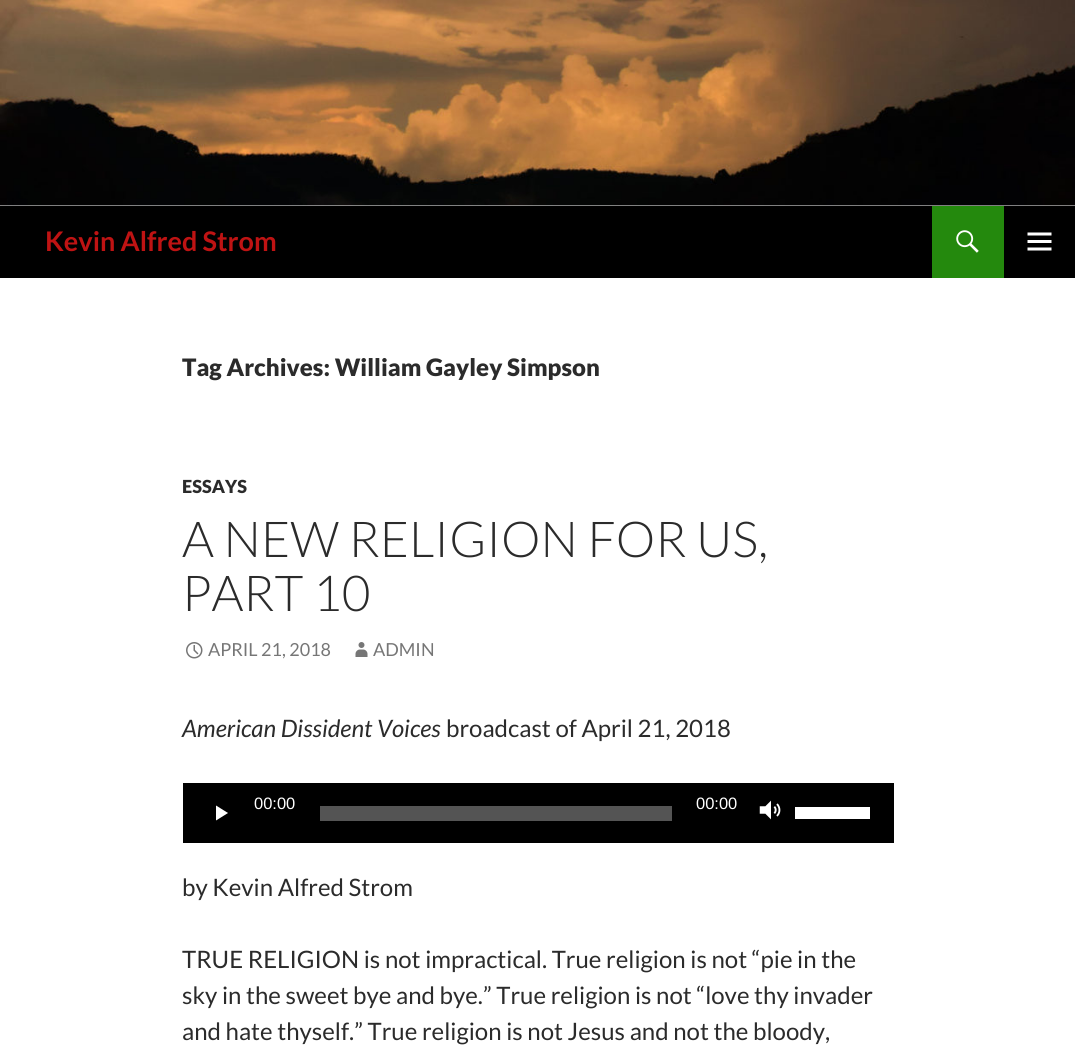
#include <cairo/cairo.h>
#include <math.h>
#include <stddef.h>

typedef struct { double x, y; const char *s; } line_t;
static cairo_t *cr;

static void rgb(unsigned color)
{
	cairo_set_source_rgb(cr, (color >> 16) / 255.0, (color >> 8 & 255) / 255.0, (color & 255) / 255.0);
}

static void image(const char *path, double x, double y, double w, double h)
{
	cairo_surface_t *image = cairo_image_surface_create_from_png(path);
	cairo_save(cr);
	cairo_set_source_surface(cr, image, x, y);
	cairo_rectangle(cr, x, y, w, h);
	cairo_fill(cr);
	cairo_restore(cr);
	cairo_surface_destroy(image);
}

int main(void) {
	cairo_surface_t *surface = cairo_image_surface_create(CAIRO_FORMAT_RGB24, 1075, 1048);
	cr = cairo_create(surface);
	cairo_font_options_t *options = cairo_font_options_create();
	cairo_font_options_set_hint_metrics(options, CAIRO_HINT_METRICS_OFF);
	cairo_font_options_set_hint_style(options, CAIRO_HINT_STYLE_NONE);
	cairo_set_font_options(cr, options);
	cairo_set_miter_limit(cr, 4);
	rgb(0xffffff);
	cairo_paint(cr);
	image("img/1.png", 0, 0, 1075, 206);
	rgb(0x000000);
	cairo_rectangle(cr, 0, 206, 1075, 72);
	cairo_fill(cr);
	rgb(0x24890d);
	cairo_rectangle(cr, 932, 206, 72, 72);
	cairo_fill(cr);
	image("img/2.png", 956, 230, 23, 23);
	image("img/3.png", 1027, 232, 25, 19);
	image("img/4.png", 186, 642, 17, 17);
	image("img/5.png", 355, 642, 13, 15);
	rgb(0x000000);
	cairo_rectangle(cr, 183, 783, 711, 60);
	cairo_fill(cr);
	rgb(0xffffff);
	cairo_new_path(cr);
	cairo_move_to(cr, 216, 820.5);
	cairo_line_to(cr, 216, 805.5);
	cairo_line_to(cr, 228, 813);
	cairo_close_path(cr);
	cairo_fill(cr);
	rgb(0x545454);
	cairo_rectangle(cr, 320, 806, 352, 15);
	cairo_fill(cr);
	image("img/6.png", 759, 800, 22, 20);
	rgb(0xffffff);
	cairo_rectangle(cr, 795, 807, 75, 12);
	cairo_fill(cr);
	cairo_select_font_face(cr, "Lato", CAIRO_FONT_SLANT_NORMAL, CAIRO_FONT_WEIGHT_BOLD);
	cairo_set_font_size(cr, 27);
	rgb(0xbf1313);
	cairo_move_to(cr, 45, 251);
	cairo_show_text(cr, "Kevin Alfred Strom");
	cairo_select_font_face(cr, "Lato Black", CAIRO_FONT_SLANT_NORMAL, CAIRO_FONT_WEIGHT_NORMAL);
	cairo_set_font_size(cr, 24);
	rgb(0x2b2b2b);
	cairo_move_to(cr, 182, 376);
	cairo_show_text(cr, "Tag Archives: William Gayley Simpson");
	cairo_set_font_size(cr, 18);
	cairo_move_to(cr, 182, 493);
	cairo_show_text(cr, "ESSAYS");
	cairo_select_font_face(cr, "Lato Light", CAIRO_FONT_SLANT_NORMAL, CAIRO_FONT_WEIGHT_NORMAL);
	cairo_set_font_size(cr, 49.5);
	cairo_move_to(cr, 182, 557);
	cairo_show_text(cr, "A NEW RELIGION FOR US,");
	cairo_move_to(cr, 182, 611);
	cairo_show_text(cr, "PART 10");
	cairo_select_font_face(cr, "Lato", CAIRO_FONT_SLANT_NORMAL, CAIRO_FONT_WEIGHT_NORMAL);
	cairo_set_font_size(cr, 18);
	rgb(0x767676);
	cairo_move_to(cr, 208, 656);
	cairo_show_text(cr, "APRIL 21, 2018");
	cairo_move_to(cr, 373, 656);
	cairo_show_text(cr, "ADMIN");
	cairo_select_font_face(cr, "Lato", CAIRO_FONT_SLANT_ITALIC, CAIRO_FONT_WEIGHT_NORMAL);
	cairo_set_font_size(cr, 24);
	rgb(0x2b2b2b);
	cairo_move_to(cr, 182, 737);
	cairo_show_text(cr, "American Dissident Voices");
	cairo_select_font_face(cr, "Lato", CAIRO_FONT_SLANT_NORMAL, CAIRO_FONT_WEIGHT_NORMAL);
	cairo_move_to(cr, 446, 737);
	cairo_show_text(cr, "broadcast of April 21, 2018");
	cairo_select_font_face(cr, "Liberation Sans", CAIRO_FONT_SLANT_NORMAL, CAIRO_FONT_WEIGHT_NORMAL);
	cairo_set_font_size(cr, 16.5);
	rgb(0xffffff);
	cairo_move_to(cr, 254, 809);
	cairo_show_text(cr, "00:00");
	cairo_move_to(cr, 696, 809);
	cairo_show_text(cr, "00:00");
	cairo_select_font_face(cr, "Lato", CAIRO_FONT_SLANT_NORMAL, CAIRO_FONT_WEIGHT_NORMAL);
	cairo_set_font_size(cr, 24);
	rgb(0x2b2b2b);
	{
		static const line_t items[] = {
			{182, 896, "by Kevin Alfred Strom"},
			{182, 968, "TRUE RELIGION is not impractical. True religion is not “pie in the"},
			{182, 1004, "sky in the sweet bye and bye.” True religion is not “love thy invader"},
			{182, 1040, "and hate thyself.” True religion is not Jesus and not the bloody,"},
		};
		for (size_t i = 0; i < sizeof items / sizeof *items; i++) {
			cairo_move_to(cr, items[i].x, items[i].y);
			cairo_show_text(cr, items[i].s);
		}
	}
	cairo_surface_write_to_png(surface, "page.png");
	cairo_font_options_destroy(options);
	cairo_destroy(cr);
	cairo_surface_destroy(surface);
	return 0;
}
